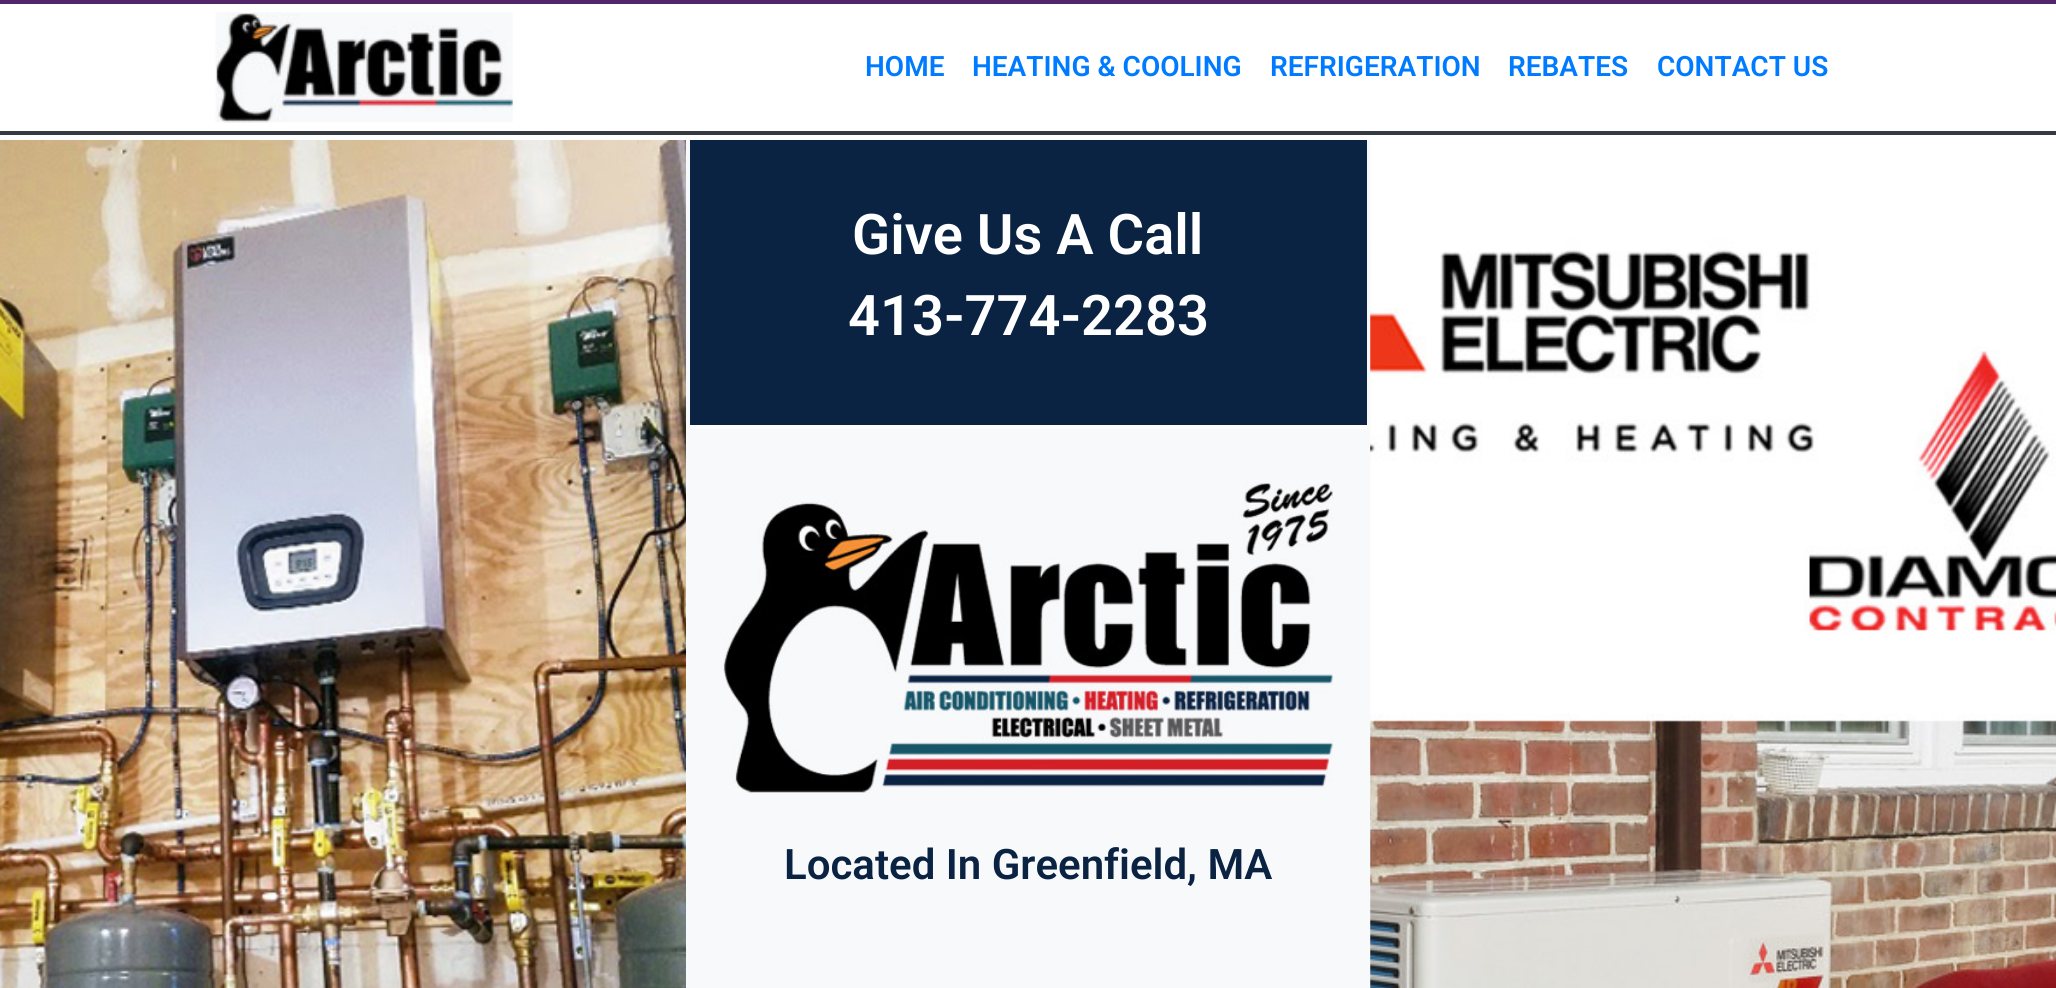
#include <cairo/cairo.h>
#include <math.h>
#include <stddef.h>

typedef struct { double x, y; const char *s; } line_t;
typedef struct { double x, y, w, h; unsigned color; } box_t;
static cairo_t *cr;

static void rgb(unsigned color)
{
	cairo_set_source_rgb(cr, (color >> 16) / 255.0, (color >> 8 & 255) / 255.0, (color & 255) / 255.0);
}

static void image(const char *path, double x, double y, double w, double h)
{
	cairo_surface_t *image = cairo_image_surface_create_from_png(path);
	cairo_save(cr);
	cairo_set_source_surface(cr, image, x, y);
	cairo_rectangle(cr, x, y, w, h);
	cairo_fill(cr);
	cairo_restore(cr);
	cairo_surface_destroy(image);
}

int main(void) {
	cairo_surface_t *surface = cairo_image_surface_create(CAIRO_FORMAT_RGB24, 2056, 988);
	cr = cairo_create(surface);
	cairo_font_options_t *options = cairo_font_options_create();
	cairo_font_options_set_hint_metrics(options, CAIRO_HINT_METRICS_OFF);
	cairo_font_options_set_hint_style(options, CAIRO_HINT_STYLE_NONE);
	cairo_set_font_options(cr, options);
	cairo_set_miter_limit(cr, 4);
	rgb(0xffffff);
	cairo_paint(cr);
	rgb(0x53256a);
	cairo_rectangle(cr, 0, 0, 2056, 4);
	cairo_fill(cr);
	rgb(0x343a40);
	cairo_rectangle(cr, 0, 131, 2056, 4);
	cairo_fill(cr);
	image("img/1.png", 215, 12, 298, 111);
	image("img/2.png", 0, 140, 686, 848);
	{
		static const box_t items[] = {
			{686, 140, 681, 848, 0xf8f9fb},
			{1367, 140, 4, 848, 0xf8f9fa},
			{690, 140, 677, 285, 0x0b2343},
			{690, 425, 677, 4, 0xffffff},
		};
		for (size_t i = 0; i < sizeof items / sizeof *items; i++) {
			rgb(items[i].color);
			cairo_rectangle(cr, items[i].x, items[i].y, items[i].w, items[i].h);
			cairo_fill(cr);
		}
	}
	image("img/3.png", 723, 481, 611, 312);
	image("img/4.png", 1370, 140, 686, 848);
	cairo_select_font_face(cr, "Roboto SemiBold", CAIRO_FONT_SLANT_NORMAL, CAIRO_FONT_WEIGHT_NORMAL);
	cairo_set_font_size(cr, 28);
	rgb(0x007bff);
	{
		static const line_t items[] = {
			{865, 76, "HOME"},
			{972, 76, "HEATING & COOLING"},
			{1270, 76, "REFRIGERATION"},
			{1508, 76, "REBATES"},
			{1657, 76, "CONTACT US"},
		};
		for (size_t i = 0; i < sizeof items / sizeof *items; i++) {
			cairo_move_to(cr, items[i].x, items[i].y);
			cairo_show_text(cr, items[i].s);
		}
	}
	cairo_set_font_size(cr, 56);
	rgb(0xffffff);
	cairo_move_to(cr, 852, 254);
	cairo_show_text(cr, "Give Us A Call");
	cairo_move_to(cr, 848, 335);
	cairo_show_text(cr, "413-774-2283");
	cairo_set_font_size(cr, 42);
	rgb(0x0b2343);
	cairo_move_to(cr, 784, 879);
	cairo_show_text(cr, "Located In Greenfield, MA");
	cairo_surface_write_to_png(surface, "page.png");
	cairo_font_options_destroy(options);
	cairo_destroy(cr);
	cairo_surface_destroy(surface);
	return 0;
}
